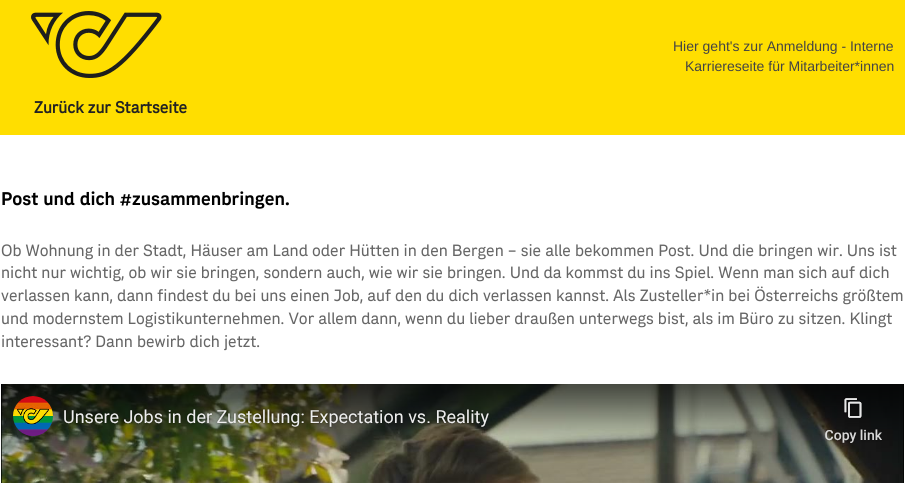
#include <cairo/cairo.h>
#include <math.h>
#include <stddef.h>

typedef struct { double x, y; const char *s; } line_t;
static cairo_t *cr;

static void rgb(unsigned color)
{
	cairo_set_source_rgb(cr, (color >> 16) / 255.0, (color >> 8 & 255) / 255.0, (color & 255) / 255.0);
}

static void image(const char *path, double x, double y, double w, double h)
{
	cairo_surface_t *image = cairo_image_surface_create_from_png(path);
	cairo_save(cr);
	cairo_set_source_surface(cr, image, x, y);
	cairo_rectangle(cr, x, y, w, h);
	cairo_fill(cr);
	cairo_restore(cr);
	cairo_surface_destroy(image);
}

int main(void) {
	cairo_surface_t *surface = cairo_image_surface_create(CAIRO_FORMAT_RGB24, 905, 483);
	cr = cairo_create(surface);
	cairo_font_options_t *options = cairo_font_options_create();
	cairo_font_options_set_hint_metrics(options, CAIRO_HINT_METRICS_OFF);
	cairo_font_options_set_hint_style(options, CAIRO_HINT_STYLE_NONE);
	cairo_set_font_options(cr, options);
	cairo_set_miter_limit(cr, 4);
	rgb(0xffffff);
	cairo_paint(cr);
	rgb(0xffde00);
	cairo_rectangle(cr, 0, 0, 905, 135);
	cairo_fill(cr);
	image("img/1.png", 31, 11, 131, 67);
	image("img/2.png", 1, 384, 903, 99);
	cairo_select_font_face(cr, "Liberation Sans", CAIRO_FONT_SLANT_NORMAL, CAIRO_FONT_WEIGHT_NORMAL);
	cairo_set_font_size(cr, 14);
	rgb(0x444444);
	cairo_move_to(cr, 673, 51);
	cairo_show_text(cr, "Hier geht's zur Anmeldung - Interne");
	cairo_move_to(cr, 685, 71);
	cairo_show_text(cr, "Karriereseite für Mitarbeiter*innen");
	cairo_select_font_face(cr, "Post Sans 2", CAIRO_FONT_SLANT_NORMAL, CAIRO_FONT_WEIGHT_BOLD);
	cairo_set_font_size(cr, 16);
	rgb(0x222222);
	cairo_move_to(cr, 34, 113);
	cairo_show_text(cr, "Zurück zur Startseite");
	cairo_select_font_face(cr, "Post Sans", CAIRO_FONT_SLANT_NORMAL, CAIRO_FONT_WEIGHT_BOLD);
	cairo_set_font_size(cr, 18);
	rgb(0x000000);
	cairo_move_to(cr, 1, 205);
	cairo_show_text(cr, "Post und dich #zusammenbringen.");
	cairo_select_font_face(cr, "Post Sans", CAIRO_FONT_SLANT_NORMAL, CAIRO_FONT_WEIGHT_NORMAL);
	cairo_set_font_size(cr, 16);
	rgb(0x666666);
	{
		static const line_t items[] = {
			{1, 256, "Ob Wohnung in der Stadt, Häuser am Land oder Hütten in den Bergen – sie alle bekommen Post. Und die bringen wir. Uns ist"},
			{1, 278, "nicht nur wichtig, ob wir sie bringen, sondern auch, wie wir sie bringen. Und da kommst du ins Spiel. Wenn man sich auf dich"},
			{1, 301, "verlassen kann, dann findest du bei uns einen Job, auf den du dich verlassen kannst. Als Zusteller*in bei Österreichs größtem"},
			{1, 324, "und modernstem Logistikunternehmen. Vor allem dann, wenn du lieber draußen unterwegs bist, als im Büro zu sitzen. Klingt"},
			{1, 347, "interessant? Dann bewirb dich jetzt."},
		};
		for (size_t i = 0; i < sizeof items / sizeof *items; i++) {
			cairo_move_to(cr, items[i].x, items[i].y);
			cairo_show_text(cr, items[i].s);
		}
	}
	cairo_surface_write_to_png(surface, "page.png");
	cairo_font_options_destroy(options);
	cairo_destroy(cr);
	cairo_surface_destroy(surface);
	return 0;
}
